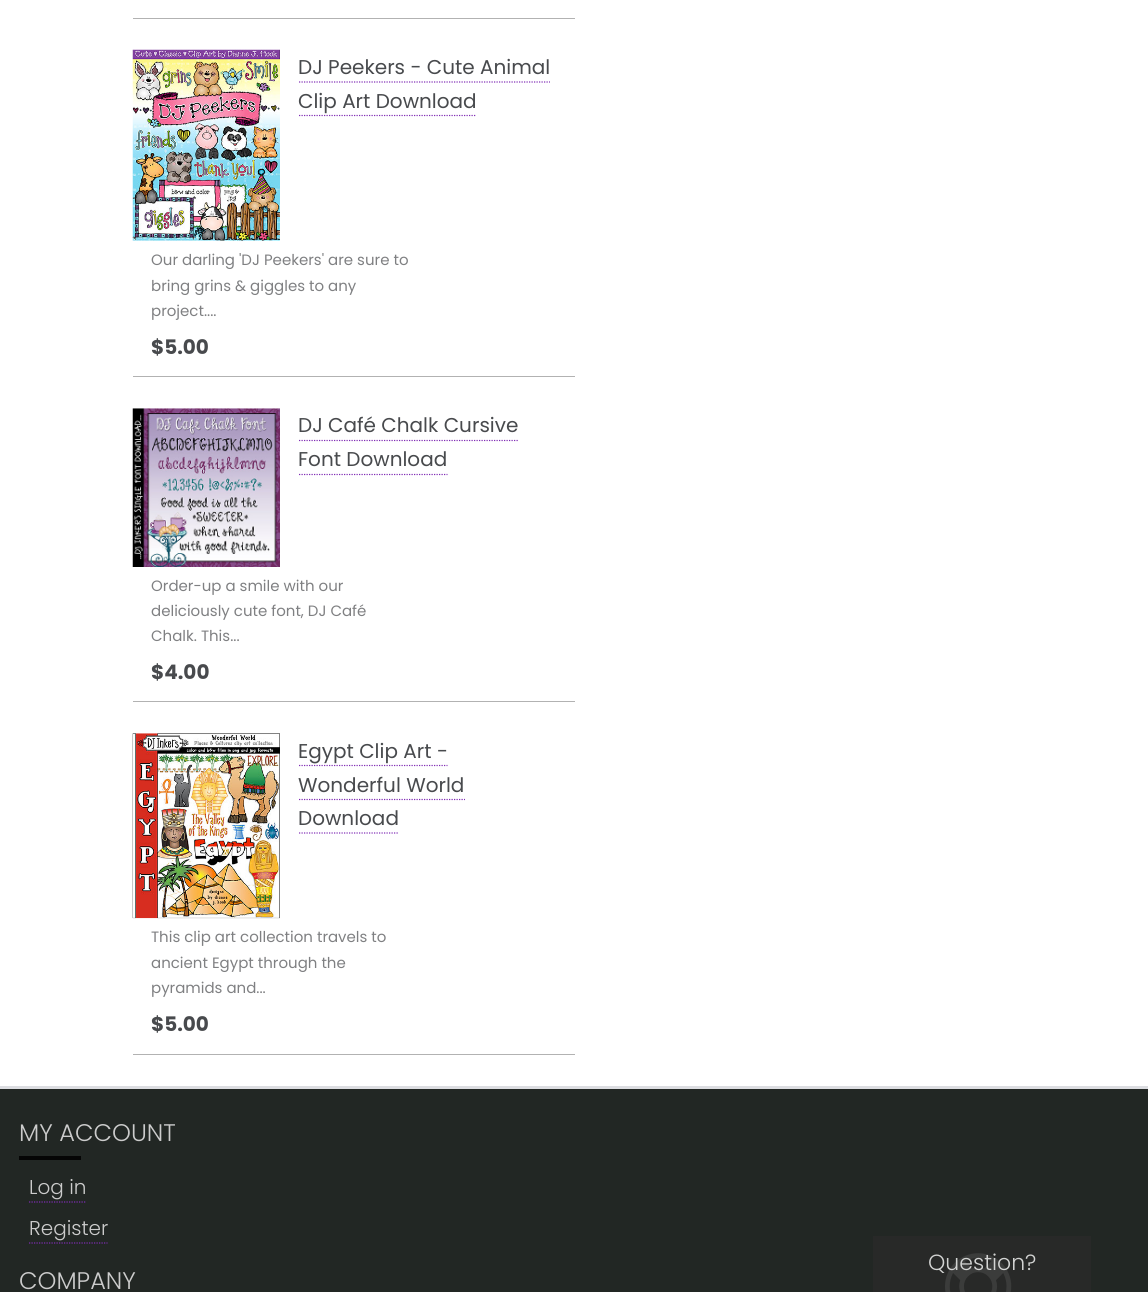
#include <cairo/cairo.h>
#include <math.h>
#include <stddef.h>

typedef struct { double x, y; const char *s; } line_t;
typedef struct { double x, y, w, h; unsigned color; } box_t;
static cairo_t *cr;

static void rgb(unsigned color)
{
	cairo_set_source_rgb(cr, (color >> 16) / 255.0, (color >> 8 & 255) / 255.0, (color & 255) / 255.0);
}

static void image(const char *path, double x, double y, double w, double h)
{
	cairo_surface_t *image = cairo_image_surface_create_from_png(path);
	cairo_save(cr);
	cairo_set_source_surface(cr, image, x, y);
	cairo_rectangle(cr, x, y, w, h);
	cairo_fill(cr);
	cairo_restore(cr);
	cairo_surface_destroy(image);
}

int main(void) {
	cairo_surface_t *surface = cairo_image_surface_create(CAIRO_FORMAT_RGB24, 1148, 1292);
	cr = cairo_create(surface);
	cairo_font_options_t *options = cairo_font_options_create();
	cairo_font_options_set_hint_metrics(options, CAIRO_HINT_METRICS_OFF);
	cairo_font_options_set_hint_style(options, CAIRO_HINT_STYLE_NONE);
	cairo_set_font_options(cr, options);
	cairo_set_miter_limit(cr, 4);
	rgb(0xffffff);
	cairo_paint(cr);
	rgb(0xb2b2b2);
	cairo_rectangle(cr, 133, 18, 442, 1);
	cairo_fill(cr);
	cairo_rectangle(cr, 133, 376, 442, 1);
	cairo_fill(cr);
	image("img/1.png", 132, 49, 148, 192);
	cairo_new_path(cr);
	cairo_move_to(cr, 299, 82);
	cairo_line_to(cr, 550, 82);
	rgb(0x802db5);
	cairo_set_line_width(cr, 1.2);
	cairo_set_dash(cr, (double[]){1.25, 1.25}, 2, 0);
	cairo_stroke(cr);
	cairo_new_path(cr);
	cairo_move_to(cr, 299, 115.5);
	cairo_line_to(cr, 476, 115.5);
	cairo_stroke(cr);
	rgb(0xb2b2b2);
	cairo_rectangle(cr, 133, 701, 442, 1);
	cairo_fill(cr);
	image("img/2.png", 132, 408, 148, 159);
	cairo_new_path(cr);
	cairo_move_to(cr, 299, 440.5);
	cairo_line_to(cr, 519, 440.5);
	rgb(0x802db5);
	cairo_stroke(cr);
	cairo_new_path(cr);
	cairo_move_to(cr, 299, 474.5);
	cairo_line_to(cr, 447.5, 474.5);
	cairo_stroke(cr);
	rgb(0xb2b2b2);
	cairo_rectangle(cr, 133, 1054, 442, 1);
	cairo_fill(cr);
	image("img/3.png", 132, 733, 148, 186);
	cairo_new_path(cr);
	cairo_move_to(cr, 299, 765.5);
	cairo_line_to(cr, 447.5, 765.5);
	rgb(0x802db5);
	cairo_stroke(cr);
	cairo_new_path(cr);
	cairo_move_to(cr, 299, 799.5);
	cairo_line_to(cr, 465, 799.5);
	cairo_stroke(cr);
	cairo_new_path(cr);
	cairo_move_to(cr, 299, 833);
	cairo_line_to(cr, 399, 833);
	cairo_stroke(cr);
	{
		static const box_t items[] = {
			{0, 1089, 1148, 203, 0x222724},
			{0, 1086, 1148, 3, 0xdcdde1},
			{19, 1156, 62, 4, 0x050505},
		};
		for (size_t i = 0; i < sizeof items / sizeof *items; i++) {
			rgb(items[i].color);
			cairo_rectangle(cr, items[i].x, items[i].y, items[i].w, items[i].h);
			cairo_fill(cr);
		}
	}
	cairo_new_path(cr);
	cairo_move_to(cr, 29, 1202);
	cairo_line_to(cr, 86, 1202);
	rgb(0x802db5);
	cairo_stroke(cr);
	cairo_new_path(cr);
	cairo_move_to(cr, 29, 1243);
	cairo_line_to(cr, 107.5, 1243);
	cairo_stroke(cr);
	rgb(0x282928);
	cairo_rectangle(cr, 873, 1236, 218, 56);
	cairo_fill(cr);
	image("img/4.png", 945, 1253, 67, 39);
	cairo_select_font_face(cr, "Poppins", CAIRO_FONT_SLANT_NORMAL, CAIRO_FONT_WEIGHT_NORMAL);
	cairo_set_font_size(cr, 20);
	rgb(0x484a4d);
	cairo_move_to(cr, 298, 74);
	cairo_show_text(cr, "DJ Peekers - Cute Animal");
	cairo_move_to(cr, 298, 108);
	cairo_show_text(cr, "Clip Art Download");
	cairo_set_font_size(cr, 15);
	rgb(0x7f8082);
	{
		static const line_t items[] = {
			{151, 265, "Our darling 'DJ Peekers' are sure to"},
			{151, 291, "bring grins & giggles to any"},
			{151, 316, "project...."},
		};
		for (size_t i = 0; i < sizeof items / sizeof *items; i++) {
			cairo_move_to(cr, items[i].x, items[i].y);
			cairo_show_text(cr, items[i].s);
		}
	}
	cairo_select_font_face(cr, "Poppins", CAIRO_FONT_SLANT_NORMAL, CAIRO_FONT_WEIGHT_BOLD);
	cairo_set_font_size(cr, 20);
	rgb(0x484a4d);
	cairo_move_to(cr, 151, 354);
	cairo_show_text(cr, "$5.00");
	cairo_select_font_face(cr, "Poppins", CAIRO_FONT_SLANT_NORMAL, CAIRO_FONT_WEIGHT_NORMAL);
	cairo_move_to(cr, 298, 432);
	cairo_show_text(cr, "DJ Café Chalk Cursive");
	cairo_move_to(cr, 298, 466);
	cairo_show_text(cr, "Font Download");
	cairo_set_font_size(cr, 15);
	rgb(0x7f8082);
	{
		static const line_t items[] = {
			{151, 591, "Order-up a smile with our"},
			{151, 616, "deliciously cute font, DJ Café"},
			{151, 641, "Chalk. This..."},
		};
		for (size_t i = 0; i < sizeof items / sizeof *items; i++) {
			cairo_move_to(cr, items[i].x, items[i].y);
			cairo_show_text(cr, items[i].s);
		}
	}
	cairo_select_font_face(cr, "Poppins", CAIRO_FONT_SLANT_NORMAL, CAIRO_FONT_WEIGHT_BOLD);
	cairo_set_font_size(cr, 20);
	rgb(0x484a4d);
	cairo_move_to(cr, 151, 679);
	cairo_show_text(cr, "$4.00");
	cairo_select_font_face(cr, "Poppins", CAIRO_FONT_SLANT_NORMAL, CAIRO_FONT_WEIGHT_NORMAL);
	{
		static const line_t items[] = {
			{298, 758, "Egypt Clip Art -"},
			{298, 792, "Wonderful World"},
			{298, 825, "Download"},
		};
		for (size_t i = 0; i < sizeof items / sizeof *items; i++) {
			cairo_move_to(cr, items[i].x, items[i].y);
			cairo_show_text(cr, items[i].s);
		}
	}
	cairo_set_font_size(cr, 15);
	rgb(0x7f8082);
	{
		static const line_t items[] = {
			{151, 942, "This clip art collection travels to"},
			{151, 968, "ancient Egypt through the"},
			{151, 993, "pyramids and..."},
		};
		for (size_t i = 0; i < sizeof items / sizeof *items; i++) {
			cairo_move_to(cr, items[i].x, items[i].y);
			cairo_show_text(cr, items[i].s);
		}
	}
	cairo_select_font_face(cr, "Poppins", CAIRO_FONT_SLANT_NORMAL, CAIRO_FONT_WEIGHT_BOLD);
	cairo_set_font_size(cr, 20);
	rgb(0x484a4d);
	cairo_move_to(cr, 151, 1031);
	cairo_show_text(cr, "$5.00");
	cairo_select_font_face(cr, "Poppins Light", CAIRO_FONT_SLANT_NORMAL, CAIRO_FONT_WEIGHT_NORMAL);
	cairo_set_font_size(cr, 24);
	rgb(0xcccccc);
	cairo_move_to(cr, 19, 1141);
	cairo_show_text(cr, "MY ACCOUNT");
	cairo_set_font_size(cr, 20);
	cairo_move_to(cr, 29, 1194);
	cairo_show_text(cr, "Log in");
	cairo_move_to(cr, 29, 1235);
	cairo_show_text(cr, "Register");
	cairo_set_font_size(cr, 24);
	cairo_move_to(cr, 19, 1289);
	cairo_show_text(cr, "COMPANY");
	cairo_set_font_size(cr, 22);
	rgb(0xd3d4d3);
	cairo_move_to(cr, 928, 1270);
	cairo_show_text(cr, "Question?");
	cairo_surface_write_to_png(surface, "page.png");
	cairo_font_options_destroy(options);
	cairo_destroy(cr);
	cairo_surface_destroy(surface);
	return 0;
}
